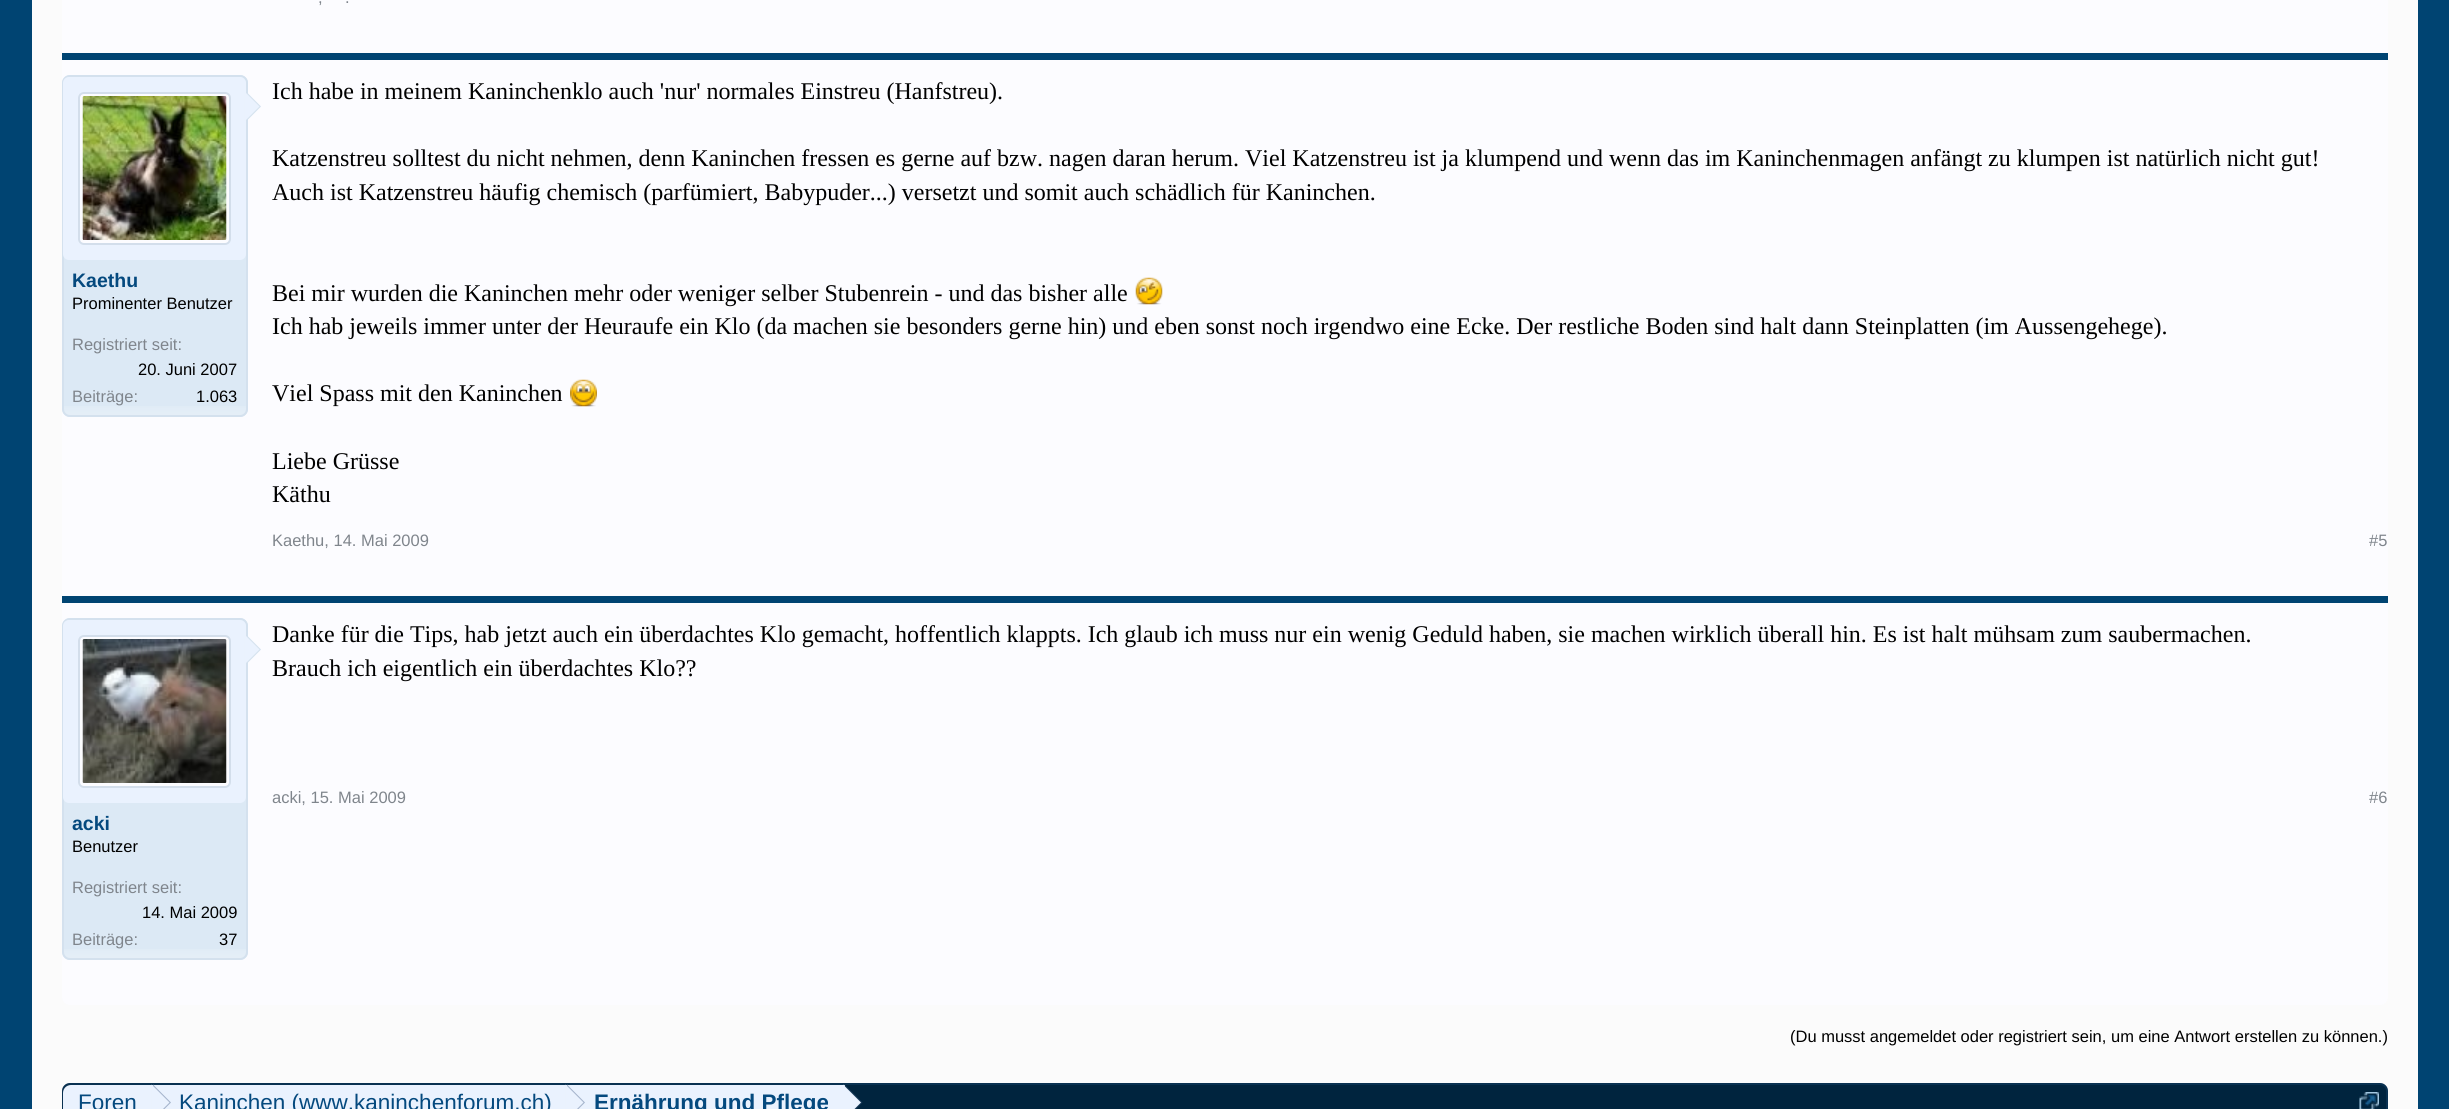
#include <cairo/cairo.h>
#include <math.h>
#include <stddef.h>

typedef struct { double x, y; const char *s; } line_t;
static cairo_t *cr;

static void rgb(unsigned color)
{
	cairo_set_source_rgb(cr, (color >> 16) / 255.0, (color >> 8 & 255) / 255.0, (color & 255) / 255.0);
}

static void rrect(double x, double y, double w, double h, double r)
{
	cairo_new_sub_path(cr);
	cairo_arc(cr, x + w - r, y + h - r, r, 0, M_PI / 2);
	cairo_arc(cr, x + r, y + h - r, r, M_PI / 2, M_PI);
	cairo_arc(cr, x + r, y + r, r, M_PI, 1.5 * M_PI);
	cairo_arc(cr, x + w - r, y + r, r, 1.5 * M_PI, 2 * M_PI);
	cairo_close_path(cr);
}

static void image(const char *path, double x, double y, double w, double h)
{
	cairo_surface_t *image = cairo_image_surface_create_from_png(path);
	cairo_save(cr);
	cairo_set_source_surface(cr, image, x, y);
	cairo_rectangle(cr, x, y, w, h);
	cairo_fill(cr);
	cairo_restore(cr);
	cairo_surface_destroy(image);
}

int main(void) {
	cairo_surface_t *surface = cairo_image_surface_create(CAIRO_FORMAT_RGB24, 2449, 1109);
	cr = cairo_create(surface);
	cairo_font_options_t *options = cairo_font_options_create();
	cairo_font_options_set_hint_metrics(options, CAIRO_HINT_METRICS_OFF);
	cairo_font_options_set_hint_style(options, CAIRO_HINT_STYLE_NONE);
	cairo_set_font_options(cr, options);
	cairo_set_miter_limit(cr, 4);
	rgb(0x004472);
	cairo_paint(cr);
	rgb(0xfbfbfb);
	cairo_rectangle(cr, 32, 0, 2386, 1109);
	cairo_fill(cr);
	rgb(0xfcfcff);
	rrect(62, -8, 2326, 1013, 8);
	cairo_fill(cr);
	rgb(0x004472);
	cairo_rectangle(cr, 62, 53, 2326, 7);
	cairo_fill(cr);
	rgb(0xdce9f5);
	rrect(62, 75, 186, 342, 8);
	cairo_fill(cr);
	image("img/1.png", 62, 406, 185, 10);
	rrect(63, 76, 184, 340, 7);
	rgb(0xd4e1ee);
	cairo_stroke(cr);
	rgb(0xeaf2fe);
	rrect(63, 77, 183, 183, 6);
	cairo_fill(cr);
	rgb(0xfcfcff);
	rrect(78, 92, 153, 153, 6);
	cairo_fill(cr);
	rrect(79, 93, 151, 151, 5);
	cairo_set_source_rgba(cr, 0.192, 0.4, 0.62, 0.2);
	cairo_stroke(cr);
	image("img/2.png", 82, 96, 145, 144);
	rgb(0xd4e1ee);
	cairo_new_path(cr);
	cairo_move_to(cr, 246, 121.5);
	cairo_line_to(cr, 246, 91.5);
	cairo_line_to(cr, 261, 106.5);
	cairo_close_path(cr);
	cairo_fill(cr);
	rgb(0xeaf2fe);
	cairo_new_path(cr);
	cairo_move_to(cr, 244.5, 121.5);
	cairo_line_to(cr, 244.5, 91.5);
	cairo_line_to(cr, 259.5, 106.5);
	cairo_close_path(cr);
	cairo_fill(cr);
	image("img/3.png", 1135, 277, 28, 28);
	image("img/4.png", 570, 379, 27, 28);
	rgb(0x004472);
	cairo_rectangle(cr, 62, 596, 2326, 7);
	cairo_fill(cr);
	rgb(0xdce9f5);
	rrect(62, 618, 186, 342, 8);
	cairo_fill(cr);
	image("img/1.png", 62, 949, 185, 10);
	rrect(63, 619, 184, 340, 7);
	rgb(0xd4e1ee);
	cairo_stroke(cr);
	rgb(0xeaf2fe);
	rrect(63, 620, 183, 183, 6);
	cairo_fill(cr);
	rgb(0xfcfcff);
	rrect(78, 635, 153, 153, 6);
	cairo_fill(cr);
	rrect(79, 636, 151, 151, 5);
	cairo_set_source_rgba(cr, 0.192, 0.4, 0.62, 0.2);
	cairo_stroke(cr);
	image("img/5.png", 82, 639, 145, 144);
	rgb(0xd4e1ee);
	cairo_new_path(cr);
	cairo_move_to(cr, 246, 664.5);
	cairo_line_to(cr, 246, 634.5);
	cairo_line_to(cr, 261, 649.5);
	cairo_close_path(cr);
	cairo_fill(cr);
	rgb(0xeaf2fe);
	cairo_new_path(cr);
	cairo_move_to(cr, 244.5, 664.5);
	cairo_line_to(cr, 244.5, 634.5);
	cairo_line_to(cr, 259.5, 649.5);
	cairo_close_path(cr);
	cairo_fill(cr);
	rgb(0x00243e);
	rrect(62, 1083, 2326, 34, 8);
	cairo_fill(cr);
	rrect(63, 1084, 2324, 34, 7);
	cairo_set_source_rgba(cr, 0.192, 0.4, 0.62, 0.2);
	cairo_stroke(cr);
	rgb(0xeaf2fe);
	cairo_new_path(cr);
	cairo_move_to(cr, 71, 1085);
	cairo_line_to(cr, 153, 1085);
	cairo_line_to(cr, 153, 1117);
	cairo_line_to(cr, 71, 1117);
	cairo_curve_to(cr, 66.5, 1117, 63, 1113.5, 63, 1109);
	cairo_line_to(cr, 63, 1093);
	cairo_curve_to(cr, 63, 1088.5, 66.5, 1085, 71, 1085);
	cairo_close_path(cr);
	cairo_fill(cr);
	cairo_rectangle(cr, 153, 1085, 692, 24);
	cairo_fill(cr);
	rgb(0xa4b4cc);
	cairo_new_path(cr);
	cairo_move_to(cr, 153, 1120.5);
	cairo_line_to(cr, 153, 1084.5);
	cairo_line_to(cr, 171, 1102.5);
	cairo_close_path(cr);
	cairo_fill(cr);
	rgb(0xeaf2fe);
	cairo_new_path(cr);
	cairo_move_to(cr, 151.5, 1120.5);
	cairo_line_to(cr, 151.5, 1084.5);
	cairo_line_to(cr, 169.5, 1102.5);
	cairo_close_path(cr);
	cairo_fill(cr);
	rgb(0xa4b4cc);
	cairo_new_path(cr);
	cairo_move_to(cr, 567, 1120.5);
	cairo_line_to(cr, 567, 1084.5);
	cairo_line_to(cr, 585, 1102.5);
	cairo_close_path(cr);
	cairo_fill(cr);
	rgb(0xeaf2fe);
	cairo_new_path(cr);
	cairo_move_to(cr, 565.5, 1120.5);
	cairo_line_to(cr, 565.5, 1084.5);
	cairo_line_to(cr, 583.5, 1102.5);
	cairo_close_path(cr);
	cairo_fill(cr);
	cairo_set_source_rgba(cr, 0.227, 0.345, 0.502, 0.4);
	cairo_new_path(cr);
	cairo_move_to(cr, 844.5, 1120.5);
	cairo_line_to(cr, 844.5, 1084.5);
	cairo_line_to(cr, 862.5, 1102.5);
	cairo_close_path(cr);
	cairo_fill(cr);
	rgb(0xeaf2fe);
	cairo_new_path(cr);
	cairo_move_to(cr, 843, 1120.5);
	cairo_line_to(cr, 843, 1084.5);
	cairo_line_to(cr, 861, 1102.5);
	cairo_close_path(cr);
	cairo_fill(cr);
	image("img/6.png", 2359, 1092, 20, 17);
	cairo_select_font_face(cr, "Liberation Sans", CAIRO_FONT_SLANT_NORMAL, CAIRO_FONT_WEIGHT_NORMAL);
	cairo_set_font_size(cr, 16.5);
	rgb(0x7f858c);
	cairo_move_to(cr, 318, 3);
	cairo_show_text(cr, ",");
	cairo_move_to(cr, 345, 3);
	cairo_show_text(cr, ".");
	cairo_select_font_face(cr, "Liberation Sans", CAIRO_FONT_SLANT_NORMAL, CAIRO_FONT_WEIGHT_BOLD);
	cairo_set_font_size(cr, 19.5);
	rgb(0x04497e);
	cairo_move_to(cr, 72, 287);
	cairo_show_text(cr, "Kaethu");
	cairo_select_font_face(cr, "Liberation Sans", CAIRO_FONT_SLANT_NORMAL, CAIRO_FONT_WEIGHT_NORMAL);
	cairo_set_font_size(cr, 16.5);
	rgb(0x000000);
	cairo_move_to(cr, 72, 309);
	cairo_show_text(cr, "Prominenter Benutzer");
	rgb(0x7f858c);
	cairo_move_to(cr, 72, 350);
	cairo_show_text(cr, "Registriert seit:");
	rgb(0x000000);
	cairo_move_to(cr, 138, 375);
	cairo_show_text(cr, "20. Juni 2007");
	rgb(0x7f858c);
	cairo_move_to(cr, 72, 402);
	cairo_show_text(cr, "Beiträge:");
	rgb(0x000000);
	cairo_move_to(cr, 196, 402);
	cairo_show_text(cr, "1.063");
	cairo_select_font_face(cr, "Liberation Serif", CAIRO_FONT_SLANT_NORMAL, CAIRO_FONT_WEIGHT_NORMAL);
	cairo_set_font_size(cr, 24);
	{
		static const line_t items[] = {
			{272, 99, "Ich habe in meinem Kaninchenklo auch 'nur' normales Einstreu (Hanfstreu)."},
			{272, 166, "Katzenstreu solltest du nicht nehmen, denn Kaninchen fressen es gerne auf bzw. nagen daran herum. Viel Katzenstreu ist ja klumpend und wenn das im Kaninchenmagen anfängt zu klumpen ist natürlich nicht gut!"},
			{272, 200, "Auch ist Katzenstreu häufig chemisch (parfümiert, Babypuder...) versetzt und somit auch schädlich für Kaninchen."},
			{272, 301, "Bei mir wurden die Kaninchen mehr oder weniger selber Stubenrein - und das bisher alle"},
			{272, 334, "Ich hab jeweils immer unter der Heuraufe ein Klo (da machen sie besonders gerne hin) und eben sonst noch irgendwo eine Ecke. Der restliche Boden sind halt dann Steinplatten (im Aussengehege)."},
			{272, 401, "Viel Spass mit den Kaninchen"},
			{272, 469, "Liebe Grüsse"},
			{272, 502, "Käthu"},
		};
		for (size_t i = 0; i < sizeof items / sizeof *items; i++) {
			cairo_move_to(cr, items[i].x, items[i].y);
			cairo_show_text(cr, items[i].s);
		}
	}
	cairo_select_font_face(cr, "Liberation Sans", CAIRO_FONT_SLANT_NORMAL, CAIRO_FONT_WEIGHT_NORMAL);
	cairo_set_font_size(cr, 16.5);
	rgb(0x7f858c);
	cairo_move_to(cr, 272, 546);
	cairo_show_text(cr, "Kaethu, 14. Mai 2009");
	cairo_move_to(cr, 2369, 546);
	cairo_show_text(cr, "#5");
	cairo_select_font_face(cr, "Liberation Serif", CAIRO_FONT_SLANT_NORMAL, CAIRO_FONT_WEIGHT_NORMAL);
	cairo_set_font_size(cr, 24);
	rgb(0x000000);
	cairo_move_to(cr, 272, 642);
	cairo_show_text(cr, "Danke für die Tips, hab jetzt auch ein überdachtes Klo gemacht, hoffentlich klappts. Ich glaub ich muss nur ein wenig Geduld haben, sie machen wirklich überall hin. Es ist halt mühsam zum saubermachen.");
	cairo_move_to(cr, 272, 676);
	cairo_show_text(cr, "Brauch ich eigentlich ein überdachtes Klo?\077");
	cairo_select_font_face(cr, "Liberation Sans", CAIRO_FONT_SLANT_NORMAL, CAIRO_FONT_WEIGHT_NORMAL);
	cairo_set_font_size(cr, 16.5);
	rgb(0x7f858c);
	cairo_move_to(cr, 272, 803);
	cairo_show_text(cr, "acki, 15. Mai 2009");
	cairo_move_to(cr, 2369, 803);
	cairo_show_text(cr, "#6");
	cairo_select_font_face(cr, "Liberation Sans", CAIRO_FONT_SLANT_NORMAL, CAIRO_FONT_WEIGHT_BOLD);
	cairo_set_font_size(cr, 19.5);
	rgb(0x04497e);
	cairo_move_to(cr, 72, 830);
	cairo_show_text(cr, "acki");
	cairo_select_font_face(cr, "Liberation Sans", CAIRO_FONT_SLANT_NORMAL, CAIRO_FONT_WEIGHT_NORMAL);
	cairo_set_font_size(cr, 16.5);
	rgb(0x000000);
	cairo_move_to(cr, 72, 852);
	cairo_show_text(cr, "Benutzer");
	rgb(0x7f858c);
	cairo_move_to(cr, 72, 893);
	cairo_show_text(cr, "Registriert seit:");
	rgb(0x000000);
	cairo_move_to(cr, 142, 918);
	cairo_show_text(cr, "14. Mai 2009");
	rgb(0x7f858c);
	cairo_move_to(cr, 72, 945);
	cairo_show_text(cr, "Beiträge:");
	rgb(0x000000);
	cairo_move_to(cr, 219, 945);
	cairo_show_text(cr, "37");
	cairo_move_to(cr, 1790, 1042);
	cairo_show_text(cr, "(Du musst angemeldet oder registriert sein, um eine Antwort erstellen zu können.)");
	cairo_set_font_size(cr, 22.5);
	rgb(0x04497e);
	cairo_move_to(cr, 78, 1110);
	cairo_show_text(cr, "Foren");
	cairo_move_to(cr, 179, 1110);
	cairo_show_text(cr, "Kaninchen (www.kaninchenforum.ch)");
	cairo_select_font_face(cr, "Liberation Sans", CAIRO_FONT_SLANT_NORMAL, CAIRO_FONT_WEIGHT_BOLD);
	cairo_move_to(cr, 594, 1110);
	cairo_show_text(cr, "Ernährung und Pflege");
	cairo_surface_write_to_png(surface, "page.png");
	cairo_font_options_destroy(options);
	cairo_destroy(cr);
	cairo_surface_destroy(surface);
	return 0;
}
